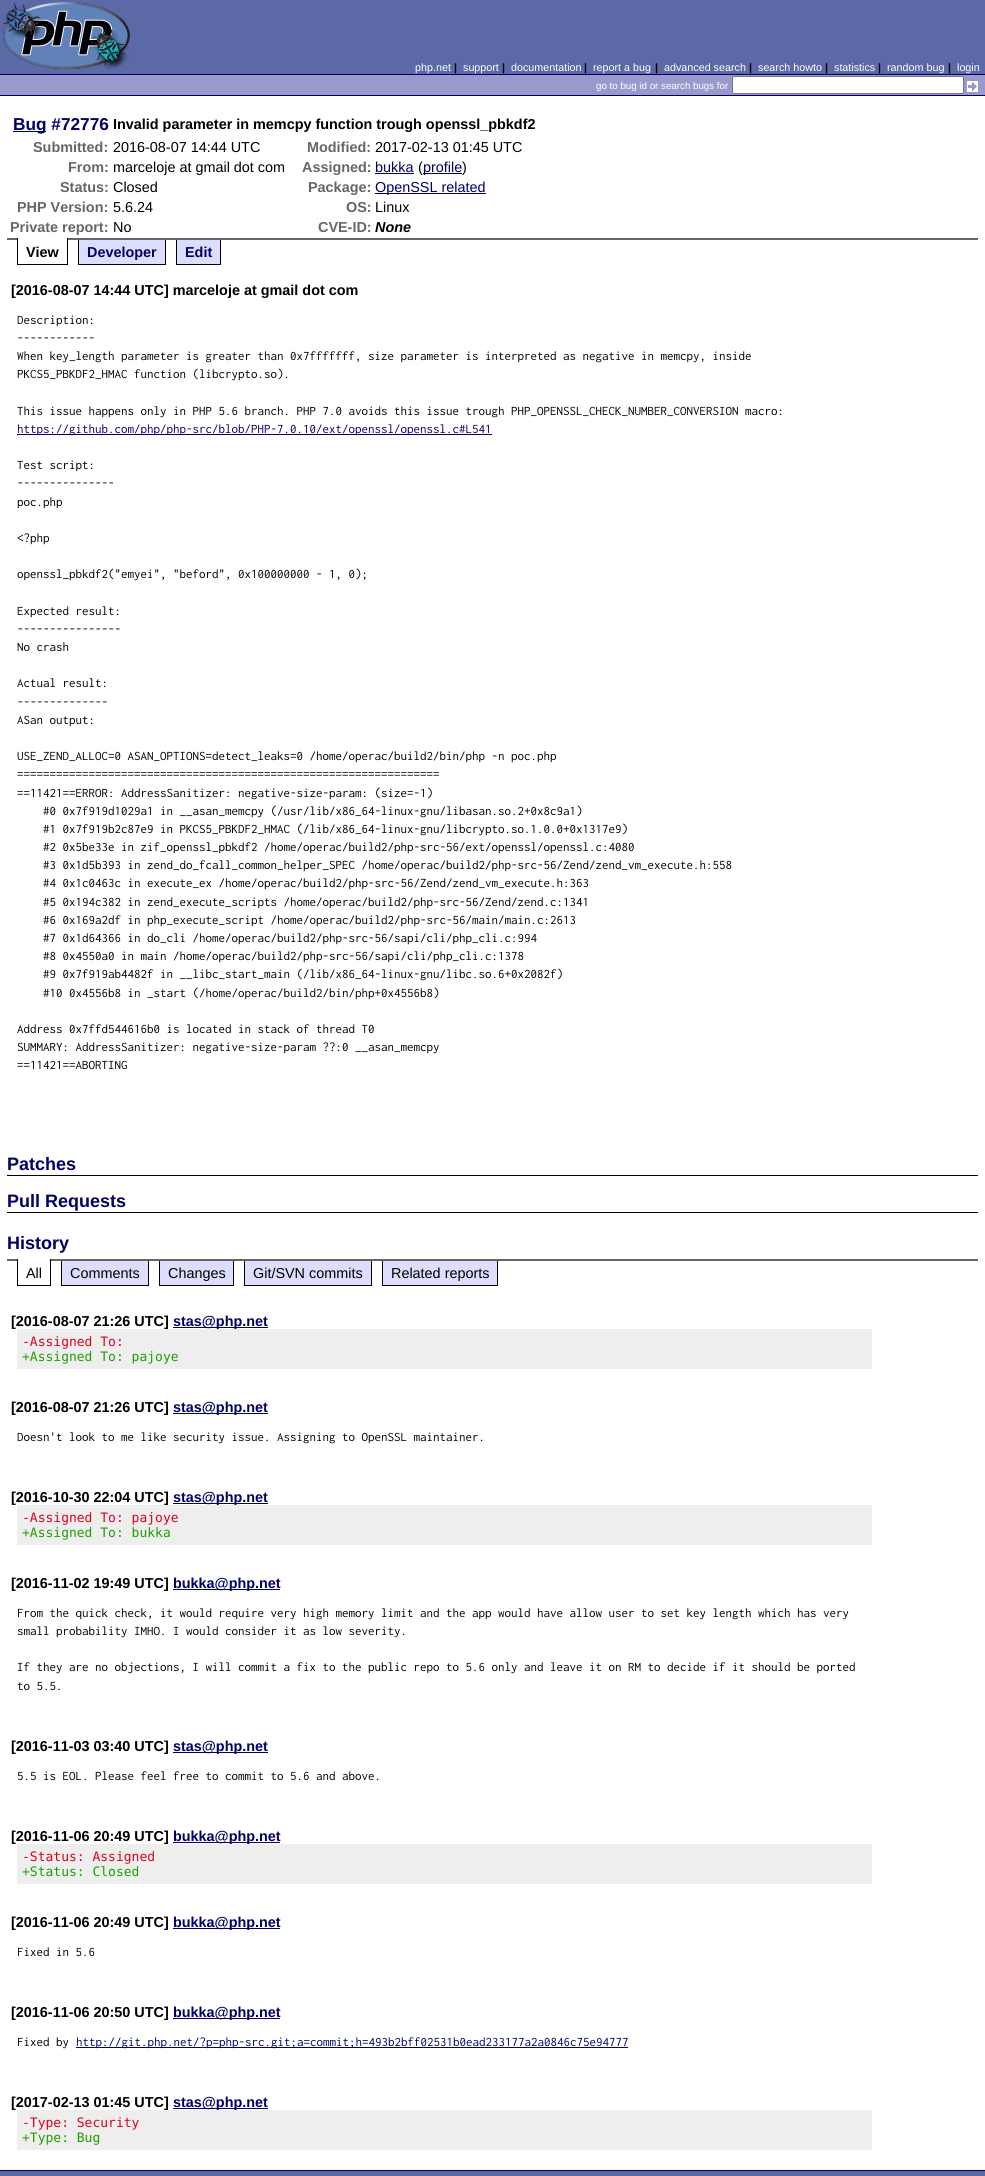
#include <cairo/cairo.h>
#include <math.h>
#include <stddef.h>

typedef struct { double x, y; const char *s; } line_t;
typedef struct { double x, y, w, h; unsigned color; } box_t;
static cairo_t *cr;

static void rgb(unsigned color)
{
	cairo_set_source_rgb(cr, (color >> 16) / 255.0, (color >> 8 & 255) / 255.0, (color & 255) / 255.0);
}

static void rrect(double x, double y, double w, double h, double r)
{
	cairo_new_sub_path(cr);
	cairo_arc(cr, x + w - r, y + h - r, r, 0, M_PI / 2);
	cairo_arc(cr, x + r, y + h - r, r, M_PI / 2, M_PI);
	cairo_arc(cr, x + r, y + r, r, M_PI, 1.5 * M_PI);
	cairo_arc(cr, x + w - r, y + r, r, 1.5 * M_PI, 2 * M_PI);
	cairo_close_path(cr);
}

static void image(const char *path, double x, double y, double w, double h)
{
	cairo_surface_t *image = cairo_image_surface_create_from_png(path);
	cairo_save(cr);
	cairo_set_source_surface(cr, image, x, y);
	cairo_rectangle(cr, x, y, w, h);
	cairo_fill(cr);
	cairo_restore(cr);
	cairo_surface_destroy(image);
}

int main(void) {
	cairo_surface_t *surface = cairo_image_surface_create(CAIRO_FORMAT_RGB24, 985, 2176);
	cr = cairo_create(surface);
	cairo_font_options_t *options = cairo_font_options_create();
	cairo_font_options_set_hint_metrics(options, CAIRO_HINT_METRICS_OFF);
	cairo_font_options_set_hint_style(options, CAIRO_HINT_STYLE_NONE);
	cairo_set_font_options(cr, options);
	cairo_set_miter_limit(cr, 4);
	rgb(0xffffff);
	cairo_paint(cr);
	rgb(0x5b69a6);
	cairo_rectangle(cr, 0, 0, 985, 74);
	cairo_fill(cr);
	image("img/1.png", 3, 2, 127, 67);
	{
		static const box_t items[] = {
			{0, 75, 985, 20, 0x9999cc},
			{0, 74, 985, 1, 0x000066},
			{0, 95, 985, 1, 0x000066},
		};
		for (size_t i = 0; i < sizeof items / sizeof *items; i++) {
			rgb(items[i].color);
			cairo_rectangle(cr, items[i].x, items[i].y, items[i].w, items[i].h);
			cairo_fill(cr);
		}
	}
	rgb(0xffffff);
	rrect(732.5, 76.5, 231, 17, 1.5);
	cairo_fill_preserve(cr);
	rgb(0x767676);
	cairo_set_line_width(cr, 1);
	cairo_stroke(cr);
	image("img/2.png", 967, 81, 11, 11);
	{
		static const box_t items[] = {
			{7, 238, 971, 2, 0x666666},
			{13, 131, 33, 1, 0x000066},
			{375, 173, 39, 1, 0x000066},
			{423, 173, 39, 1, 0x000066},
			{375, 193, 111, 1, 0x000066},
			{18, 238, 49, 2, 0xffffff},
			{67, 238, 1, 27, 0x000000},
			{17, 264, 51, 1, 0x000000},
			{17, 238, 1, 27, 0x000000},
			{79, 240, 86, 24, 0xddddff},
			{165, 240, 1, 25, 0x000000},
			{78, 264, 88, 1, 0x000000},
			{78, 240, 1, 25, 0x000000},
			{177, 240, 43, 24, 0xddddff},
			{220, 240, 1, 25, 0x000000},
			{176, 264, 45, 1, 0x000000},
			{176, 240, 1, 25, 0x000000},
			{17, 434, 475, 1, 0x000066},
			{7, 1175, 971, 1, 0x000000},
			{7, 1212, 971, 1, 0x000000},
			{7, 1259, 971, 2, 0x666666},
			{18, 1259, 32, 2, 0xffffff},
			{50, 1259, 1, 27, 0x000000},
			{17, 1285, 34, 1, 0x000000},
			{17, 1259, 1, 27, 0x000000},
			{62, 1261, 86, 24, 0xddddff},
			{148, 1261, 1, 25, 0x000000},
			{61, 1285, 88, 1, 0x000000},
			{61, 1261, 1, 25, 0x000000},
			{160, 1261, 73, 24, 0xddddff},
			{233, 1261, 1, 25, 0x000000},
			{159, 1285, 75, 1, 0x000000},
			{159, 1261, 1, 25, 0x000000},
			{245, 1261, 126, 24, 0xddddff},
			{371, 1261, 1, 25, 0x000000},
			{244, 1285, 128, 1, 0x000000},
			{244, 1261, 1, 25, 0x000000},
			{383, 1261, 114, 24, 0xddddff},
			{497, 1261, 1, 25, 0x000000},
			{382, 1285, 116, 1, 0x000000},
			{382, 1261, 1, 25, 0x000000},
			{173, 1327, 95, 1, 0x000066},
			{17, 1329, 855, 40, 0xeeeeee},
			{173, 1413, 95, 1, 0x000066},
			{173, 1503, 95, 1, 0x000066},
			{17, 1505, 855, 40, 0xeeeeee},
			{173, 1589, 107, 1, 0x000066},
			{173, 1752, 95, 1, 0x000066},
			{173, 1842, 107, 1, 0x000066},
			{17, 1844, 855, 40, 0xeeeeee},
			{173, 1928, 107, 1, 0x000066},
			{173, 2018, 107, 1, 0x000066},
			{76, 2047, 552, 1, 0x000066},
			{173, 2108, 95, 1, 0x000066},
			{17, 2110, 855, 40, 0xeeeeee},
			{0, 2171, 985, 5, 0x5b69a6},
			{0, 2170, 985, 1, 0x000066},
		};
		for (size_t i = 0; i < sizeof items / sizeof *items; i++) {
			rgb(items[i].color);
			cairo_rectangle(cr, items[i].x, items[i].y, items[i].w, items[i].h);
			cairo_fill(cr);
		}
	}
	cairo_select_font_face(cr, "Liberation Sans", CAIRO_FONT_SLANT_NORMAL, CAIRO_FONT_WEIGHT_NORMAL);
	cairo_set_font_size(cr, 10.75);
	rgb(0xffffff);
	cairo_move_to(cr, 415, 71);
	cairo_show_text(cr, "php.net");
	cairo_select_font_face(cr, "Liberation Sans", CAIRO_FONT_SLANT_NORMAL, CAIRO_FONT_WEIGHT_BOLD);
	rgb(0x000000);
	cairo_move_to(cr, 454, 71);
	cairo_show_text(cr, "|");
	cairo_select_font_face(cr, "Liberation Sans", CAIRO_FONT_SLANT_NORMAL, CAIRO_FONT_WEIGHT_NORMAL);
	rgb(0xffffff);
	cairo_move_to(cr, 463, 71);
	cairo_show_text(cr, "support");
	cairo_select_font_face(cr, "Liberation Sans", CAIRO_FONT_SLANT_NORMAL, CAIRO_FONT_WEIGHT_BOLD);
	rgb(0x000000);
	cairo_move_to(cr, 502, 71);
	cairo_show_text(cr, "|");
	cairo_select_font_face(cr, "Liberation Sans", CAIRO_FONT_SLANT_NORMAL, CAIRO_FONT_WEIGHT_NORMAL);
	rgb(0xffffff);
	cairo_move_to(cr, 511, 71);
	cairo_show_text(cr, "documentation");
	cairo_select_font_face(cr, "Liberation Sans", CAIRO_FONT_SLANT_NORMAL, CAIRO_FONT_WEIGHT_BOLD);
	rgb(0x000000);
	cairo_move_to(cr, 584, 71);
	cairo_show_text(cr, "|");
	cairo_select_font_face(cr, "Liberation Sans", CAIRO_FONT_SLANT_NORMAL, CAIRO_FONT_WEIGHT_NORMAL);
	rgb(0xffffff);
	cairo_move_to(cr, 593, 71);
	cairo_show_text(cr, "report a bug");
	cairo_select_font_face(cr, "Liberation Sans", CAIRO_FONT_SLANT_NORMAL, CAIRO_FONT_WEIGHT_BOLD);
	rgb(0x000000);
	cairo_move_to(cr, 655, 71);
	cairo_show_text(cr, "|");
	cairo_select_font_face(cr, "Liberation Sans", CAIRO_FONT_SLANT_NORMAL, CAIRO_FONT_WEIGHT_NORMAL);
	rgb(0xffffff);
	cairo_move_to(cr, 664, 71);
	cairo_show_text(cr, "advanced search");
	cairo_select_font_face(cr, "Liberation Sans", CAIRO_FONT_SLANT_NORMAL, CAIRO_FONT_WEIGHT_BOLD);
	rgb(0x000000);
	cairo_move_to(cr, 749, 71);
	cairo_show_text(cr, "|");
	cairo_select_font_face(cr, "Liberation Sans", CAIRO_FONT_SLANT_NORMAL, CAIRO_FONT_WEIGHT_NORMAL);
	rgb(0xffffff);
	cairo_move_to(cr, 758, 71);
	cairo_show_text(cr, "search howto");
	cairo_select_font_face(cr, "Liberation Sans", CAIRO_FONT_SLANT_NORMAL, CAIRO_FONT_WEIGHT_BOLD);
	rgb(0x000000);
	cairo_move_to(cr, 825, 71);
	cairo_show_text(cr, "|");
	cairo_select_font_face(cr, "Liberation Sans", CAIRO_FONT_SLANT_NORMAL, CAIRO_FONT_WEIGHT_NORMAL);
	rgb(0xffffff);
	cairo_move_to(cr, 834, 71);
	cairo_show_text(cr, "statistics");
	cairo_select_font_face(cr, "Liberation Sans", CAIRO_FONT_SLANT_NORMAL, CAIRO_FONT_WEIGHT_BOLD);
	rgb(0x000000);
	cairo_move_to(cr, 878, 71);
	cairo_show_text(cr, "|");
	cairo_select_font_face(cr, "Liberation Sans", CAIRO_FONT_SLANT_NORMAL, CAIRO_FONT_WEIGHT_NORMAL);
	rgb(0xffffff);
	cairo_move_to(cr, 887, 71);
	cairo_show_text(cr, "random bug");
	cairo_select_font_face(cr, "Liberation Sans", CAIRO_FONT_SLANT_NORMAL, CAIRO_FONT_WEIGHT_BOLD);
	rgb(0x000000);
	cairo_move_to(cr, 948, 71);
	cairo_show_text(cr, "|");
	cairo_select_font_face(cr, "Liberation Sans", CAIRO_FONT_SLANT_NORMAL, CAIRO_FONT_WEIGHT_NORMAL);
	rgb(0xffffff);
	cairo_move_to(cr, 957, 71);
	cairo_show_text(cr, "login");
	cairo_set_font_size(cr, 9.75);
	cairo_move_to(cr, 596, 89);
	cairo_show_text(cr, "go to bug id or search bugs for");
	cairo_select_font_face(cr, "Liberation Sans", CAIRO_FONT_SLANT_NORMAL, CAIRO_FONT_WEIGHT_BOLD);
	cairo_set_font_size(cr, 17.25);
	rgb(0x000066);
	cairo_move_to(cr, 13, 130);
	cairo_show_text(cr, "Bug #72776");
	cairo_set_font_size(cr, 14.4);
	rgb(0x000000);
	cairo_move_to(cr, 113, 129);
	cairo_show_text(cr, "Invalid parameter in memcpy function trough openssl_pbkdf2");
	rgb(0x666666);
	cairo_move_to(cr, 33, 152);
	cairo_show_text(cr, "Submitted:");
	cairo_select_font_face(cr, "Liberation Sans", CAIRO_FONT_SLANT_NORMAL, CAIRO_FONT_WEIGHT_NORMAL);
	rgb(0x000000);
	cairo_move_to(cr, 113, 152);
	cairo_show_text(cr, "2016-08-07 14:44 UTC");
	cairo_select_font_face(cr, "Liberation Sans", CAIRO_FONT_SLANT_NORMAL, CAIRO_FONT_WEIGHT_BOLD);
	rgb(0x666666);
	cairo_move_to(cr, 307, 152);
	cairo_show_text(cr, "Modified:");
	cairo_select_font_face(cr, "Liberation Sans", CAIRO_FONT_SLANT_NORMAL, CAIRO_FONT_WEIGHT_NORMAL);
	rgb(0x000000);
	cairo_move_to(cr, 375, 152);
	cairo_show_text(cr, "2017-02-13 01:45 UTC");
	cairo_select_font_face(cr, "Liberation Sans", CAIRO_FONT_SLANT_NORMAL, CAIRO_FONT_WEIGHT_BOLD);
	rgb(0x666666);
	cairo_move_to(cr, 68, 172);
	cairo_show_text(cr, "From:");
	cairo_select_font_face(cr, "Liberation Sans", CAIRO_FONT_SLANT_NORMAL, CAIRO_FONT_WEIGHT_NORMAL);
	rgb(0x000000);
	cairo_move_to(cr, 113, 172);
	cairo_show_text(cr, "marceloje at gmail dot com");
	cairo_select_font_face(cr, "Liberation Sans", CAIRO_FONT_SLANT_NORMAL, CAIRO_FONT_WEIGHT_BOLD);
	rgb(0x666666);
	cairo_move_to(cr, 302, 172);
	cairo_show_text(cr, "Assigned:");
	cairo_select_font_face(cr, "Liberation Sans", CAIRO_FONT_SLANT_NORMAL, CAIRO_FONT_WEIGHT_NORMAL);
	rgb(0x000066);
	cairo_move_to(cr, 375, 172);
	cairo_show_text(cr, "bukka");
	rgb(0x000000);
	cairo_move_to(cr, 418, 172);
	cairo_show_text(cr, "(");
	rgb(0x000066);
	cairo_move_to(cr, 423, 172);
	cairo_show_text(cr, "profile");
	rgb(0x000000);
	cairo_move_to(cr, 462, 172);
	cairo_show_text(cr, ")");
	cairo_select_font_face(cr, "Liberation Sans", CAIRO_FONT_SLANT_NORMAL, CAIRO_FONT_WEIGHT_BOLD);
	rgb(0x666666);
	cairo_move_to(cr, 60, 192);
	cairo_show_text(cr, "Status:");
	cairo_select_font_face(cr, "Liberation Sans", CAIRO_FONT_SLANT_NORMAL, CAIRO_FONT_WEIGHT_NORMAL);
	rgb(0x000000);
	cairo_move_to(cr, 113, 192);
	cairo_show_text(cr, "Closed");
	cairo_select_font_face(cr, "Liberation Sans", CAIRO_FONT_SLANT_NORMAL, CAIRO_FONT_WEIGHT_BOLD);
	rgb(0x666666);
	cairo_move_to(cr, 308, 192);
	cairo_show_text(cr, "Package:");
	cairo_select_font_face(cr, "Liberation Sans", CAIRO_FONT_SLANT_NORMAL, CAIRO_FONT_WEIGHT_NORMAL);
	rgb(0x000066);
	cairo_move_to(cr, 375, 192);
	cairo_show_text(cr, "OpenSSL related");
	cairo_select_font_face(cr, "Liberation Sans", CAIRO_FONT_SLANT_NORMAL, CAIRO_FONT_WEIGHT_BOLD);
	rgb(0x666666);
	cairo_move_to(cr, 17, 212);
	cairo_show_text(cr, "PHP Version:");
	cairo_select_font_face(cr, "Liberation Sans", CAIRO_FONT_SLANT_NORMAL, CAIRO_FONT_WEIGHT_NORMAL);
	rgb(0x000000);
	cairo_move_to(cr, 113, 212);
	cairo_show_text(cr, "5.6.24");
	cairo_select_font_face(cr, "Liberation Sans", CAIRO_FONT_SLANT_NORMAL, CAIRO_FONT_WEIGHT_BOLD);
	rgb(0x666666);
	cairo_move_to(cr, 346, 212);
	cairo_show_text(cr, "OS:");
	cairo_select_font_face(cr, "Liberation Sans", CAIRO_FONT_SLANT_NORMAL, CAIRO_FONT_WEIGHT_NORMAL);
	rgb(0x000000);
	cairo_move_to(cr, 375, 212);
	cairo_show_text(cr, "Linux");
	cairo_select_font_face(cr, "Liberation Sans", CAIRO_FONT_SLANT_NORMAL, CAIRO_FONT_WEIGHT_BOLD);
	rgb(0x666666);
	cairo_move_to(cr, 10, 232);
	cairo_show_text(cr, "Private report:");
	cairo_select_font_face(cr, "Liberation Sans", CAIRO_FONT_SLANT_NORMAL, CAIRO_FONT_WEIGHT_NORMAL);
	rgb(0x000000);
	cairo_move_to(cr, 113, 232);
	cairo_show_text(cr, "No");
	cairo_select_font_face(cr, "Liberation Sans", CAIRO_FONT_SLANT_NORMAL, CAIRO_FONT_WEIGHT_BOLD);
	rgb(0x666666);
	cairo_move_to(cr, 318, 232);
	cairo_show_text(cr, "CVE-ID:");
	cairo_select_font_face(cr, "Liberation Sans", CAIRO_FONT_SLANT_ITALIC, CAIRO_FONT_WEIGHT_BOLD);
	rgb(0x000000);
	cairo_move_to(cr, 375, 232);
	cairo_show_text(cr, "None");
	cairo_select_font_face(cr, "Liberation Sans", CAIRO_FONT_SLANT_NORMAL, CAIRO_FONT_WEIGHT_BOLD);
	cairo_move_to(cr, 26, 257);
	cairo_show_text(cr, "View");
	rgb(0x000066);
	cairo_move_to(cr, 87, 257);
	cairo_show_text(cr, "Developer");
	cairo_move_to(cr, 185, 257);
	cairo_show_text(cr, "Edit");
	rgb(0x000000);
	cairo_move_to(cr, 11, 295);
	cairo_show_text(cr, "[2016-08-07 14:44 UTC] marceloje at gmail dot com");
	cairo_select_font_face(cr, "Inconsolata", CAIRO_FONT_SLANT_NORMAL, CAIRO_FONT_WEIGHT_NORMAL);
	cairo_set_font_size(cr, 13);
	{
		static const line_t items[] = {
			{17, 324, "Description:"},
			{17, 342, "------------"},
			{17, 360, "When key_length parameter is greater than 0x7fffffff, size parameter is interpreted as negative in memcpy, inside"},
			{17, 378, "PKCS5_PBKDF2_HMAC function (libcrypto.so)."},
			{17, 415, "This issue happens only in PHP 5.6 branch. PHP 7.0 avoids this issue trough PHP_OPENSSL_CHECK_NUMBER_CONVERSION macro:"},
		};
		for (size_t i = 0; i < sizeof items / sizeof *items; i++) {
			cairo_move_to(cr, items[i].x, items[i].y);
			cairo_show_text(cr, items[i].s);
		}
	}
	rgb(0x000066);
	cairo_move_to(cr, 17, 433);
	cairo_show_text(cr, "https://github.com/php/php-src/blob/PHP-7.0.10/ext/openssl/openssl.c#L541");
	rgb(0x000000);
	{
		static const line_t items[] = {
			{17, 469, "Test script:"},
			{17, 487, "---------------"},
			{17, 506, "poc.php"},
			{17, 542, "<?php"},
			{17, 578, "openssl_pbkdf2(\"emyei\", \"beford\", 0x100000000 - 1, 0);"},
			{17, 615, "Expected result:"},
			{17, 633, "----------------"},
			{17, 651, "No crash"},
			{17, 687, "Actual result:"},
			{17, 706, "--------------"},
			{17, 724, "ASan output:"},
			{17, 760, "USE_ZEND_ALLOC=0 ASAN_OPTIONS=detect_leaks=0 /home/operac/build2/bin/php -n poc.php"},
			{17, 778, "================================================================="},
			{17, 797, "==11421==ERROR: AddressSanitizer: negative-size-param: (size=-1)"},
			{43, 815, "#0 0x7f919d1029a1 in __asan_memcpy (/usr/lib/x86_64-linux-gnu/libasan.so.2+0x8c9a1)"},
			{43, 833, "#1 0x7f919b2c87e9 in PKCS5_PBKDF2_HMAC (/lib/x86_64-linux-gnu/libcrypto.so.1.0.0+0x1317e9)"},
			{43, 851, "#2 0x5be33e in zif_openssl_pbkdf2 /home/operac/build2/php-src-56/ext/openssl/openssl.c:4080"},
			{43, 869, "#3 0x1d5b393 in zend_do_fcall_common_helper_SPEC /home/operac/build2/php-src-56/Zend/zend_vm_execute.h:558"},
			{43, 887, "#4 0x1c0463c in execute_ex /home/operac/build2/php-src-56/Zend/zend_vm_execute.h:363"},
			{43, 906, "#5 0x194c382 in zend_execute_scripts /home/operac/build2/php-src-56/Zend/zend.c:1341"},
			{43, 924, "#6 0x169a2df in php_execute_script /home/operac/build2/php-src-56/main/main.c:2613"},
			{43, 942, "#7 0x1d64366 in do_cli /home/operac/build2/php-src-56/sapi/cli/php_cli.c:994"},
			{43, 960, "#8 0x4550a0 in main /home/operac/build2/php-src-56/sapi/cli/php_cli.c:1378"},
			{43, 978, "#9 0x7f919ab4482f in __libc_start_main (/lib/x86_64-linux-gnu/libc.so.6+0x2082f)"},
			{43, 997, "#10 0x4556b8 in _start (/home/operac/build2/bin/php+0x4556b8)"},
			{17, 1033, "Address 0x7ffd544616b0 is located in stack of thread T0"},
			{17, 1051, "SUMMARY: AddressSanitizer: negative-size-param ?\077:0 __asan_memcpy"},
			{17, 1069, "==11421==ABORTING"},
		};
		for (size_t i = 0; i < sizeof items / sizeof *items; i++) {
			cairo_move_to(cr, items[i].x, items[i].y);
			cairo_show_text(cr, items[i].s);
		}
	}
	cairo_select_font_face(cr, "Liberation Sans", CAIRO_FONT_SLANT_NORMAL, CAIRO_FONT_WEIGHT_BOLD);
	cairo_set_font_size(cr, 18);
	rgb(0x000066);
	{
		static const line_t items[] = {
			{7, 1170, "Patches"},
			{7, 1207, "Pull Requests"},
			{7, 1249, "History"},
		};
		for (size_t i = 0; i < sizeof items / sizeof *items; i++) {
			cairo_move_to(cr, items[i].x, items[i].y);
			cairo_show_text(cr, items[i].s);
		}
	}
	cairo_select_font_face(cr, "Liberation Sans", CAIRO_FONT_SLANT_NORMAL, CAIRO_FONT_WEIGHT_NORMAL);
	cairo_set_font_size(cr, 14.4);
	rgb(0x000000);
	{
		static const line_t items[] = {
			{26, 1278, "All"},
			{70, 1278, "Comments"},
			{168, 1278, "Changes"},
			{253, 1278, "Git/SVN commits"},
			{391, 1278, "Related reports"},
		};
		for (size_t i = 0; i < sizeof items / sizeof *items; i++) {
			cairo_move_to(cr, items[i].x, items[i].y);
			cairo_show_text(cr, items[i].s);
		}
	}
	cairo_select_font_face(cr, "Liberation Sans", CAIRO_FONT_SLANT_NORMAL, CAIRO_FONT_WEIGHT_BOLD);
	cairo_move_to(cr, 11, 1326);
	cairo_show_text(cr, "[2016-08-07 21:26 UTC]");
	rgb(0x000066);
	cairo_move_to(cr, 173, 1326);
	cairo_show_text(cr, "stas@php.net");
	cairo_select_font_face(cr, "DejaVu Sans Mono", CAIRO_FONT_SLANT_NORMAL, CAIRO_FONT_WEIGHT_NORMAL);
	cairo_set_font_size(cr, 13);
	rgb(0xde0019);
	cairo_move_to(cr, 22, 1346);
	cairo_show_text(cr, "-Assigned To:");
	rgb(0x1aa100);
	cairo_move_to(cr, 22, 1361);
	cairo_show_text(cr, "+Assigned To: pajoye");
	cairo_select_font_face(cr, "Liberation Sans", CAIRO_FONT_SLANT_NORMAL, CAIRO_FONT_WEIGHT_BOLD);
	cairo_set_font_size(cr, 14.4);
	rgb(0x000000);
	cairo_move_to(cr, 11, 1412);
	cairo_show_text(cr, "[2016-08-07 21:26 UTC]");
	rgb(0x000066);
	cairo_move_to(cr, 173, 1412);
	cairo_show_text(cr, "stas@php.net");
	cairo_select_font_face(cr, "Inconsolata", CAIRO_FONT_SLANT_NORMAL, CAIRO_FONT_WEIGHT_NORMAL);
	cairo_set_font_size(cr, 13);
	rgb(0x000000);
	cairo_move_to(cr, 17, 1441);
	cairo_show_text(cr, "Doesn't look to me like security issue. Assigning to OpenSSL maintainer.");
	cairo_select_font_face(cr, "Liberation Sans", CAIRO_FONT_SLANT_NORMAL, CAIRO_FONT_WEIGHT_BOLD);
	cairo_set_font_size(cr, 14.4);
	cairo_move_to(cr, 11, 1502);
	cairo_show_text(cr, "[2016-10-30 22:04 UTC]");
	rgb(0x000066);
	cairo_move_to(cr, 173, 1502);
	cairo_show_text(cr, "stas@php.net");
	cairo_select_font_face(cr, "DejaVu Sans Mono", CAIRO_FONT_SLANT_NORMAL, CAIRO_FONT_WEIGHT_NORMAL);
	cairo_set_font_size(cr, 13);
	rgb(0xde0019);
	cairo_move_to(cr, 22, 1522);
	cairo_show_text(cr, "-Assigned To: pajoye");
	rgb(0x1aa100);
	cairo_move_to(cr, 22, 1537);
	cairo_show_text(cr, "+Assigned To: bukka");
	cairo_select_font_face(cr, "Liberation Sans", CAIRO_FONT_SLANT_NORMAL, CAIRO_FONT_WEIGHT_BOLD);
	cairo_set_font_size(cr, 14.4);
	rgb(0x000000);
	cairo_move_to(cr, 11, 1588);
	cairo_show_text(cr, "[2016-11-02 19:49 UTC]");
	rgb(0x000066);
	cairo_move_to(cr, 173, 1588);
	cairo_show_text(cr, "bukka@php.net");
	cairo_select_font_face(cr, "Inconsolata", CAIRO_FONT_SLANT_NORMAL, CAIRO_FONT_WEIGHT_NORMAL);
	cairo_set_font_size(cr, 13);
	rgb(0x000000);
	{
		static const line_t items[] = {
			{17, 1617, "From the quick check, it would require very high memory limit and the app would have allow user to set key length which has very"},
			{17, 1635, "small probability IMHO. I would consider it as low severity."},
			{17, 1671, "If they are no objections, I will commit a fix to the public repo to 5.6 only and leave it on RM to decide if it should be ported"},
			{17, 1690, "to 5.5."},
		};
		for (size_t i = 0; i < sizeof items / sizeof *items; i++) {
			cairo_move_to(cr, items[i].x, items[i].y);
			cairo_show_text(cr, items[i].s);
		}
	}
	cairo_select_font_face(cr, "Liberation Sans", CAIRO_FONT_SLANT_NORMAL, CAIRO_FONT_WEIGHT_BOLD);
	cairo_set_font_size(cr, 14.4);
	cairo_move_to(cr, 11, 1751);
	cairo_show_text(cr, "[2016-11-03 03:40 UTC]");
	rgb(0x000066);
	cairo_move_to(cr, 173, 1751);
	cairo_show_text(cr, "stas@php.net");
	cairo_select_font_face(cr, "Inconsolata", CAIRO_FONT_SLANT_NORMAL, CAIRO_FONT_WEIGHT_NORMAL);
	cairo_set_font_size(cr, 13);
	rgb(0x000000);
	cairo_move_to(cr, 17, 1780);
	cairo_show_text(cr, "5.5 is EOL. Please feel free to commit to 5.6 and above.");
	cairo_select_font_face(cr, "Liberation Sans", CAIRO_FONT_SLANT_NORMAL, CAIRO_FONT_WEIGHT_BOLD);
	cairo_set_font_size(cr, 14.4);
	cairo_move_to(cr, 11, 1841);
	cairo_show_text(cr, "[2016-11-06 20:49 UTC]");
	rgb(0x000066);
	cairo_move_to(cr, 173, 1841);
	cairo_show_text(cr, "bukka@php.net");
	cairo_select_font_face(cr, "DejaVu Sans Mono", CAIRO_FONT_SLANT_NORMAL, CAIRO_FONT_WEIGHT_NORMAL);
	cairo_set_font_size(cr, 13);
	rgb(0xde0019);
	cairo_move_to(cr, 22, 1861);
	cairo_show_text(cr, "-Status: Assigned");
	rgb(0x1aa100);
	cairo_move_to(cr, 22, 1876);
	cairo_show_text(cr, "+Status: Closed");
	cairo_select_font_face(cr, "Liberation Sans", CAIRO_FONT_SLANT_NORMAL, CAIRO_FONT_WEIGHT_BOLD);
	cairo_set_font_size(cr, 14.4);
	rgb(0x000000);
	cairo_move_to(cr, 11, 1927);
	cairo_show_text(cr, "[2016-11-06 20:49 UTC]");
	rgb(0x000066);
	cairo_move_to(cr, 173, 1927);
	cairo_show_text(cr, "bukka@php.net");
	cairo_select_font_face(cr, "Inconsolata", CAIRO_FONT_SLANT_NORMAL, CAIRO_FONT_WEIGHT_NORMAL);
	cairo_set_font_size(cr, 13);
	rgb(0x000000);
	cairo_move_to(cr, 17, 1956);
	cairo_show_text(cr, "Fixed in 5.6");
	cairo_select_font_face(cr, "Liberation Sans", CAIRO_FONT_SLANT_NORMAL, CAIRO_FONT_WEIGHT_BOLD);
	cairo_set_font_size(cr, 14.4);
	cairo_move_to(cr, 11, 2017);
	cairo_show_text(cr, "[2016-11-06 20:50 UTC]");
	rgb(0x000066);
	cairo_move_to(cr, 173, 2017);
	cairo_show_text(cr, "bukka@php.net");
	cairo_select_font_face(cr, "Inconsolata", CAIRO_FONT_SLANT_NORMAL, CAIRO_FONT_WEIGHT_NORMAL);
	cairo_set_font_size(cr, 13);
	rgb(0x000000);
	cairo_move_to(cr, 17, 2046);
	cairo_show_text(cr, "Fixed by");
	rgb(0x000066);
	cairo_move_to(cr, 76, 2046);
	cairo_show_text(cr, "http://git.php.net/?p=php-src.git;a=commit;h=493b2bff02531b0ead233177a2a0846c75e94777");
	cairo_select_font_face(cr, "Liberation Sans", CAIRO_FONT_SLANT_NORMAL, CAIRO_FONT_WEIGHT_BOLD);
	cairo_set_font_size(cr, 14.4);
	rgb(0x000000);
	cairo_move_to(cr, 11, 2107);
	cairo_show_text(cr, "[2017-02-13 01:45 UTC]");
	rgb(0x000066);
	cairo_move_to(cr, 173, 2107);
	cairo_show_text(cr, "stas@php.net");
	cairo_select_font_face(cr, "DejaVu Sans Mono", CAIRO_FONT_SLANT_NORMAL, CAIRO_FONT_WEIGHT_NORMAL);
	cairo_set_font_size(cr, 13);
	rgb(0xde0019);
	cairo_move_to(cr, 22, 2127);
	cairo_show_text(cr, "-Type: Security");
	rgb(0x1aa100);
	cairo_move_to(cr, 22, 2142);
	cairo_show_text(cr, "+Type: Bug");
	cairo_surface_write_to_png(surface, "page.png");
	cairo_font_options_destroy(options);
	cairo_destroy(cr);
	cairo_surface_destroy(surface);
	return 0;
}
